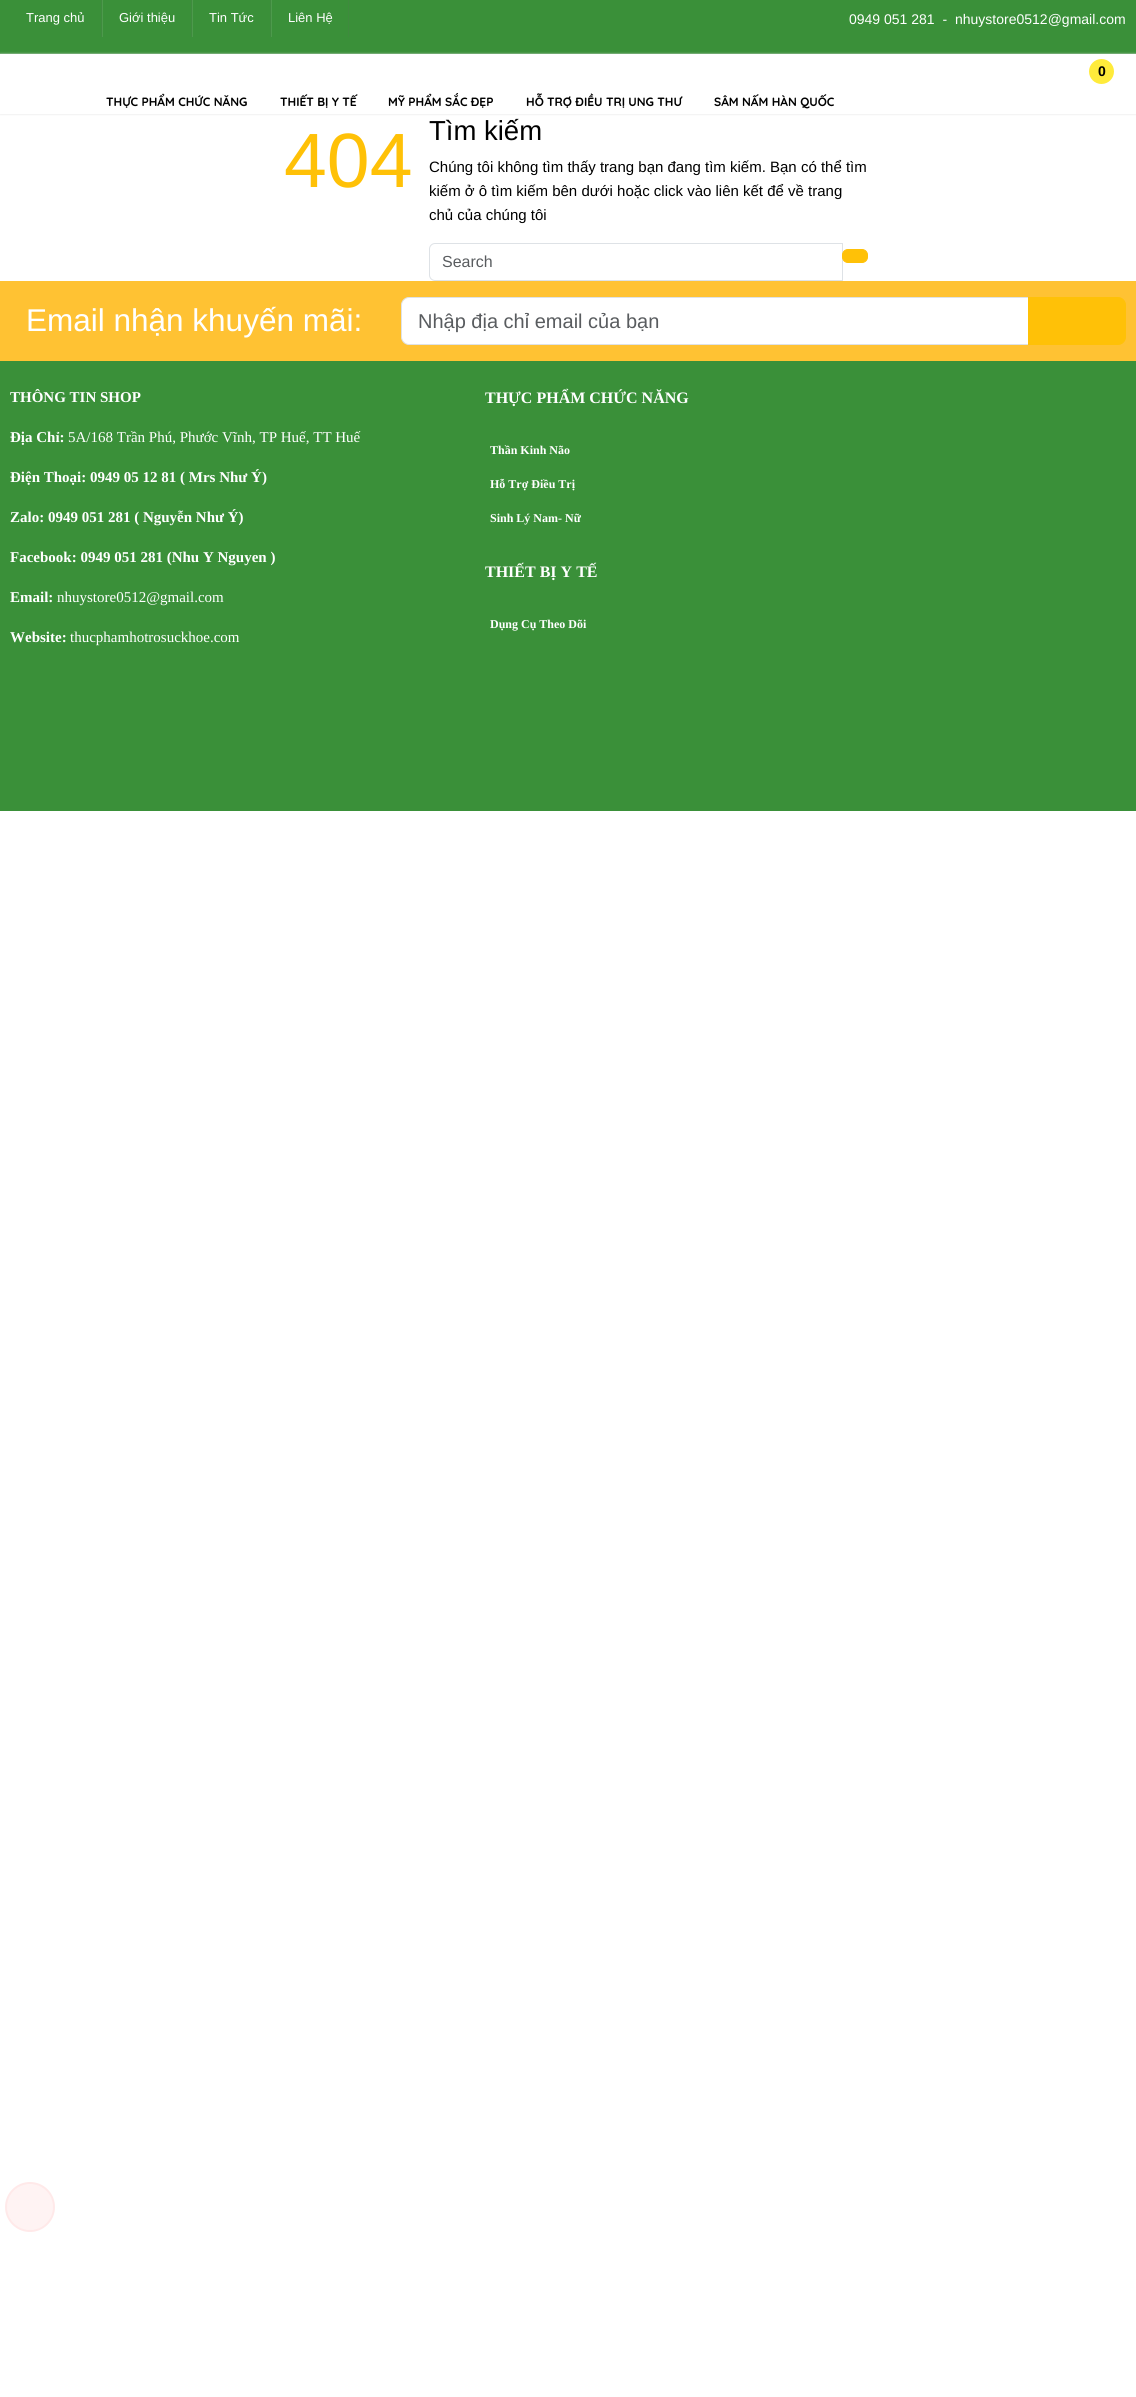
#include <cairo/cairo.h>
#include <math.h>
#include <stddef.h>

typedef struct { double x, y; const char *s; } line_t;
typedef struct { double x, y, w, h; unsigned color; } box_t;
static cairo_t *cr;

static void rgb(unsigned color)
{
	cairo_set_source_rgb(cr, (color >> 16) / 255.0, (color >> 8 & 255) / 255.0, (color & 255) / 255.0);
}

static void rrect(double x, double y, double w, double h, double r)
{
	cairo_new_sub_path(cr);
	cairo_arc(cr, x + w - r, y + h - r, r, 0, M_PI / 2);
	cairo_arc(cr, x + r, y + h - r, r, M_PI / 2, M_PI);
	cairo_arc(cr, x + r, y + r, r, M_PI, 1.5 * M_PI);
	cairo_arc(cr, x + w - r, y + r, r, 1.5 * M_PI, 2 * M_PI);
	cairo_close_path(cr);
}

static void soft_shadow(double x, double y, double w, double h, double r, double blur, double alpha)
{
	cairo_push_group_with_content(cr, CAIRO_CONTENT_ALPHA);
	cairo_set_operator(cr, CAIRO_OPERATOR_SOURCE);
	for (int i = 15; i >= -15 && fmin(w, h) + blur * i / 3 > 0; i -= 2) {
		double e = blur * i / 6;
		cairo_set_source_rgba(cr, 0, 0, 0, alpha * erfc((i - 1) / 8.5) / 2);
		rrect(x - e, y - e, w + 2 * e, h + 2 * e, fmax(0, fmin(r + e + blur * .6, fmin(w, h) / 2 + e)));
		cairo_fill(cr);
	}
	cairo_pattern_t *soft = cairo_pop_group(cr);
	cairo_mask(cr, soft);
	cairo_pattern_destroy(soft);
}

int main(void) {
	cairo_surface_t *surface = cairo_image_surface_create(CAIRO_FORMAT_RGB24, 1136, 2397);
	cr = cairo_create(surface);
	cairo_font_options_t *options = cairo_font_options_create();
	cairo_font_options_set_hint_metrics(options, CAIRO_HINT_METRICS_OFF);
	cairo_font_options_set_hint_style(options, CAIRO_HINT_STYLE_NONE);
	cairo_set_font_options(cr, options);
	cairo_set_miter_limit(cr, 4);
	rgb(0xffffff);
	cairo_paint(cr);
	{
		static const box_t items[] = {
			{0, 0, 1136, 54, 0x3a9039},
			{101, 0, 1, 37, 0x3f8a3e},
			{191, 0, 1, 37, 0x3f8a3e},
			{102, 0, 1, 37, 0x4d9a4c},
			{270, 0, 1, 37, 0x3f8a3e},
			{192, 0, 1, 37, 0x4d9a4c},
			{348, 0, 1, 37, 0x3f8a3e},
			{271, 0, 1, 37, 0x4d9a4c},
		};
		for (size_t i = 0; i < sizeof items / sizeof *items; i++) {
			rgb(items[i].color);
			cairo_rectangle(cr, items[i].x, items[i].y, items[i].w, items[i].h);
			cairo_fill(cr);
		}
	}
	cairo_save(cr);
	cairo_set_fill_rule(cr, CAIRO_FILL_RULE_EVEN_ODD);
	cairo_new_path(cr);
	cairo_move_to(cr, 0, 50);
	cairo_line_to(cr, 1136, 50);
	cairo_line_to(cr, 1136, 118);
	cairo_line_to(cr, 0, 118);
	cairo_close_path(cr);
	cairo_move_to(cr, 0, 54);
	cairo_line_to(cr, 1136, 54);
	cairo_line_to(cr, 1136, 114);
	cairo_line_to(cr, 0, 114);
	cairo_close_path(cr);
	cairo_clip(cr);
	rgb(0xdfdfdf);
	soft_shadow(0, 54, 1136, 60, 0, 1, 1);
	cairo_restore(cr);
	rgb(0xffeb3b);
	cairo_arc(cr, 1101.5, 71.5, 12.5, 0, 2 * M_PI);
	cairo_fill(cr);
	cairo_new_path(cr);
	cairo_move_to(cr, 435, 243.5);
	cairo_line_to(cr, 842.5, 243.5);
	cairo_line_to(cr, 842.5, 280.5);
	cairo_line_to(cr, 435, 280.5);
	cairo_curve_to(cr, 432, 280.5, 429.5, 278, 429.5, 275);
	cairo_line_to(cr, 429.5, 249);
	cairo_curve_to(cr, 429.5, 246, 432, 243.5, 435, 243.5);
	cairo_close_path(cr);
	rgb(0xdee2e6);
	cairo_set_line_width(cr, 1);
	cairo_stroke(cr);
	rgb(0xffc107);
	rrect(842.5, 249.5, 25, 13, 5.5);
	cairo_fill_preserve(cr);
	cairo_stroke(cr);
	rgb(0xffc233);
	cairo_rectangle(cr, 0, 281, 1136, 80);
	cairo_fill(cr);
	rgb(0xffffff);
	cairo_new_path(cr);
	cairo_move_to(cr, 409, 297.5);
	cairo_line_to(cr, 1028.5, 297.5);
	cairo_line_to(cr, 1028.5, 344.5);
	cairo_line_to(cr, 409, 344.5);
	cairo_curve_to(cr, 405, 344.5, 401.5, 341, 401.5, 337);
	cairo_line_to(cr, 401.5, 305);
	cairo_curve_to(cr, 401.5, 301, 405, 297.5, 409, 297.5);
	cairo_close_path(cr);
	cairo_fill_preserve(cr);
	rgb(0xdee2e6);
	cairo_stroke(cr);
	rgb(0xffc107);
	cairo_new_path(cr);
	cairo_move_to(cr, 1028.5, 297.5);
	cairo_line_to(cr, 1118, 297.5);
	cairo_curve_to(cr, 1122, 297.5, 1125.5, 301, 1125.5, 305);
	cairo_line_to(cr, 1125.5, 337);
	cairo_curve_to(cr, 1125.5, 341, 1122, 344.5, 1118, 344.5);
	cairo_line_to(cr, 1028.5, 344.5);
	cairo_close_path(cr);
	cairo_fill_preserve(cr);
	cairo_stroke(cr);
	rgb(0x3a9039);
	cairo_rectangle(cr, 0, 361, 1136, 450);
	cairo_fill(cr);
	rgb(0xfff3f3);
	cairo_arc(cr, 30, 2207, 24, 0, 2 * M_PI);
	cairo_fill_preserve(cr);
	rgb(0xffe9e9);
	cairo_set_line_width(cr, 2);
	cairo_stroke(cr);
	cairo_select_font_face(cr, "Liberation Sans", CAIRO_FONT_SLANT_NORMAL, CAIRO_FONT_WEIGHT_NORMAL);
	cairo_set_font_size(cr, 13);
	rgb(0xffffff);
	{
		static const line_t items[] = {
			{26, 22, "Trang chủ"},
			{119, 22, "Giới thiệu"},
			{209, 22, "Tin Tức"},
			{288, 22, "Liên Hệ"},
		};
		for (size_t i = 0; i < sizeof items / sizeof *items; i++) {
			cairo_move_to(cr, items[i].x, items[i].y);
			cairo_show_text(cr, items[i].s);
		}
	}
	cairo_set_font_size(cr, 14);
	cairo_move_to(cr, 849, 24);
	cairo_show_text(cr, "0949 051 281  -");
	cairo_move_to(cr, 955, 24);
	cairo_show_text(cr, "nhuystore0512@gmail.com");
	cairo_select_font_face(cr, "Liberation Sans", CAIRO_FONT_SLANT_NORMAL, CAIRO_FONT_WEIGHT_BOLD);
	rgb(0x000000);
	cairo_move_to(cr, 1098, 76);
	cairo_show_text(cr, "0");
	cairo_select_font_face(cr, "Quicksand", CAIRO_FONT_SLANT_NORMAL, CAIRO_FONT_WEIGHT_BOLD);
	cairo_set_font_size(cr, 12);
	{
		static const line_t items[] = {
			{106, 106, "THỰC PHẨM CHỨC NĂNG"},
			{280, 106, "THIẾT BỊ Y TẾ"},
			{388, 106, "MỸ PHẨM SẮC ĐẸP"},
			{526, 106, "HỖ TRỢ ĐIỀU TRỊ UNG THƯ"},
			{714, 106, "SÂM NẤM HÀN QUỐC"},
		};
		for (size_t i = 0; i < sizeof items / sizeof *items; i++) {
			cairo_move_to(cr, items[i].x, items[i].y);
			cairo_show_text(cr, items[i].s);
		}
	}
	cairo_select_font_face(cr, "Liberation Sans", CAIRO_FONT_SLANT_NORMAL, CAIRO_FONT_WEIGHT_NORMAL);
	cairo_set_font_size(cr, 77);
	rgb(0xffc107);
	cairo_move_to(cr, 284, 187);
	cairo_show_text(cr, "404");
	cairo_set_font_size(cr, 27.5);
	rgb(0x000000);
	cairo_move_to(cr, 429, 140);
	cairo_show_text(cr, "Tìm kiếm");
	cairo_set_font_size(cr, 15);
	{
		static const line_t items[] = {
			{429, 172, "Chúng tôi không tìm thấy trang bạn đang tìm kiếm. Bạn có thể tìm"},
			{429, 196, "kiếm ở ô tìm kiếm bên dưới hoặc click vào liên kết để về trang"},
			{429, 220, "chủ của chúng tôi"},
		};
		for (size_t i = 0; i < sizeof items / sizeof *items; i++) {
			cairo_move_to(cr, items[i].x, items[i].y);
			cairo_show_text(cr, items[i].s);
		}
	}
	cairo_set_font_size(cr, 16);
	rgb(0x595c5f);
	cairo_move_to(cr, 442, 267);
	cairo_show_text(cr, "Search");
	cairo_set_font_size(cr, 31.5);
	rgb(0xffffff);
	cairo_move_to(cr, 26, 331);
	cairo_show_text(cr, "Email nhận khuyến mãi:");
	cairo_set_font_size(cr, 20);
	rgb(0x595c5f);
	cairo_move_to(cr, 418, 328);
	cairo_show_text(cr, "Nhập địa chỉ email của bạn");
	cairo_select_font_face(cr, "Liberation Serif", CAIRO_FONT_SLANT_NORMAL, CAIRO_FONT_WEIGHT_BOLD);
	cairo_set_font_size(cr, 15);
	rgb(0xffffff);
	cairo_move_to(cr, 10, 402);
	cairo_show_text(cr, "THÔNG TIN SHOP");
	cairo_move_to(cr, 10, 442);
	cairo_show_text(cr, "Địa Chỉ:");
	cairo_select_font_face(cr, "Liberation Serif", CAIRO_FONT_SLANT_NORMAL, CAIRO_FONT_WEIGHT_NORMAL);
	cairo_move_to(cr, 68, 442);
	cairo_show_text(cr, "5A/168 Trần Phú, Phước Vĩnh, TP Huế, TT Huế");
	cairo_select_font_face(cr, "Liberation Serif", CAIRO_FONT_SLANT_NORMAL, CAIRO_FONT_WEIGHT_BOLD);
	{
		static const line_t items[] = {
			{10, 482, "Điện Thoại: 0949 05 12 81 ( Mrs Như Ý)"},
			{10, 522, "Zalo: 0949 051 281 ( Nguyễn Như Ý)"},
			{10, 562, "Facebook: 0949 051 281 (Nhu Y Nguyen )"},
			{10, 602, "Email:"},
		};
		for (size_t i = 0; i < sizeof items / sizeof *items; i++) {
			cairo_move_to(cr, items[i].x, items[i].y);
			cairo_show_text(cr, items[i].s);
		}
	}
	cairo_select_font_face(cr, "Liberation Serif", CAIRO_FONT_SLANT_NORMAL, CAIRO_FONT_WEIGHT_NORMAL);
	cairo_move_to(cr, 57, 602);
	cairo_show_text(cr, "nhuystore0512@gmail.com");
	cairo_select_font_face(cr, "Liberation Serif", CAIRO_FONT_SLANT_NORMAL, CAIRO_FONT_WEIGHT_BOLD);
	cairo_move_to(cr, 10, 642);
	cairo_show_text(cr, "Website:");
	cairo_select_font_face(cr, "Liberation Serif", CAIRO_FONT_SLANT_NORMAL, CAIRO_FONT_WEIGHT_NORMAL);
	cairo_move_to(cr, 70, 642);
	cairo_show_text(cr, "thucphamhotrosuckhoe.com");
	cairo_select_font_face(cr, "Liberation Serif", CAIRO_FONT_SLANT_NORMAL, CAIRO_FONT_WEIGHT_BOLD);
	cairo_set_font_size(cr, 16);
	cairo_move_to(cr, 485, 403);
	cairo_show_text(cr, "THỰC PHẨM CHỨC NĂNG");
	cairo_set_font_size(cr, 12);
	{
		static const line_t items[] = {
			{490, 454, "Thần Kinh Não"},
			{490, 488, "Hỗ Trợ Điều Trị"},
			{490, 522, "Sinh Lý Nam- Nữ"},
		};
		for (size_t i = 0; i < sizeof items / sizeof *items; i++) {
			cairo_move_to(cr, items[i].x, items[i].y);
			cairo_show_text(cr, items[i].s);
		}
	}
	cairo_set_font_size(cr, 16);
	cairo_move_to(cr, 485, 577);
	cairo_show_text(cr, "THIẾT BỊ Y TẾ");
	cairo_set_font_size(cr, 12);
	cairo_move_to(cr, 490, 628);
	cairo_show_text(cr, "Dụng Cụ Theo Dõi");
	cairo_surface_write_to_png(surface, "page.png");
	cairo_font_options_destroy(options);
	cairo_destroy(cr);
	cairo_surface_destroy(surface);
	return 0;
}
